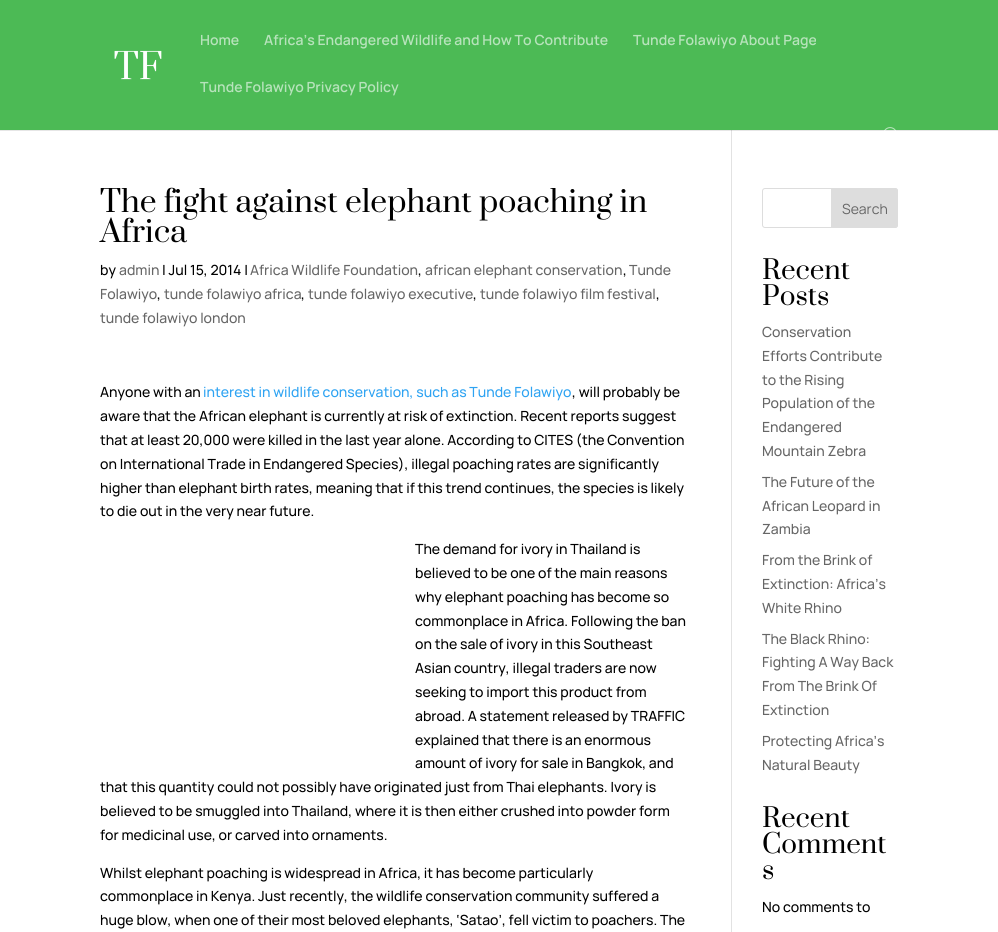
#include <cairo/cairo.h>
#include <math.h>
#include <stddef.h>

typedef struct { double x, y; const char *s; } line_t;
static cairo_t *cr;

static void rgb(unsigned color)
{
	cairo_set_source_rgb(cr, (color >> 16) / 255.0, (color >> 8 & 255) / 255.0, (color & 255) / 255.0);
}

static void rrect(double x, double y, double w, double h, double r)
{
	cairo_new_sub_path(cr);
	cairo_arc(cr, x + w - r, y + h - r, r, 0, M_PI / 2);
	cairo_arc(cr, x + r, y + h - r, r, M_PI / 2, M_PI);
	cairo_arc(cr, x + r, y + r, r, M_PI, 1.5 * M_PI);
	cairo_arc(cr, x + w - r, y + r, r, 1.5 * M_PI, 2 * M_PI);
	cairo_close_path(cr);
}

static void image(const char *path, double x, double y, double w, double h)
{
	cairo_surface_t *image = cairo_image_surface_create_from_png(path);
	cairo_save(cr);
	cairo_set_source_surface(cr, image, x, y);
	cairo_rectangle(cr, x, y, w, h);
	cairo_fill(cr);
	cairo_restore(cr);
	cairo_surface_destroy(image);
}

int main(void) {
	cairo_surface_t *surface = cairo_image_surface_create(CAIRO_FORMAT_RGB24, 998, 932);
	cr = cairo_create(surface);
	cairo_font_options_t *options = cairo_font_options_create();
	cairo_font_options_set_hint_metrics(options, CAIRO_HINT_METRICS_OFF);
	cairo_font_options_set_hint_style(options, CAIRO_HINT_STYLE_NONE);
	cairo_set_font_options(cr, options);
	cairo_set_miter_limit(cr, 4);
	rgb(0xffffff);
	cairo_paint(cr);
	rgb(0xe6e6e6);
	cairo_rectangle(cr, 0, 130, 998, 1);
	cairo_fill(cr);
	rgb(0x4cba55);
	cairo_rectangle(cr, 0, 0, 998, 130);
	cairo_fill(cr);
	image("img/1.png", 114, 50, 48, 30);
	image("img/2.png", 884, 127, 12, 4);
	rgb(0xe2e2e2);
	cairo_rectangle(cr, 731, 130, 1, 802);
	cairo_fill(cr);
	rgb(0xcbcbcb);
	cairo_rectangle(cr, 731, 130, 1, 1);
	cairo_fill(cr);
	rrect(762.5, 188.5, 135, 39, 2.5);
	rgb(0xdddddd);
	cairo_set_line_width(cr, 1);
	cairo_stroke(cr);
	cairo_new_path(cr);
	cairo_move_to(cr, 831.5, 188.5);
	cairo_line_to(cr, 895, 188.5);
	cairo_curve_to(cr, 896.5, 188.5, 897.5, 189.5, 897.5, 191);
	cairo_line_to(cr, 897.5, 225);
	cairo_curve_to(cr, 897.5, 226.5, 896.5, 227.5, 895, 227.5);
	cairo_line_to(cr, 831.5, 227.5);
	cairo_close_path(cr);
	cairo_fill_preserve(cr);
	cairo_stroke(cr);
	cairo_select_font_face(cr, "Manrope SemiBold", CAIRO_FONT_SLANT_NORMAL, CAIRO_FONT_WEIGHT_NORMAL);
	cairo_set_font_size(cr, 14);
	rgb(0xb7e3bb);
	{
		static const line_t items[] = {
			{200, 45, "Home"},
			{264, 45, "Africa’s Endangered Wildlife and How To Contribute"},
			{633, 45, "Tunde Folawiyo About Page"},
			{200, 92, "Tunde Folawiyo Privacy Policy"},
		};
		for (size_t i = 0; i < sizeof items / sizeof *items; i++) {
			cairo_move_to(cr, items[i].x, items[i].y);
			cairo_show_text(cr, items[i].s);
		}
	}
	cairo_select_font_face(cr, "Prata", CAIRO_FONT_SLANT_NORMAL, CAIRO_FONT_WEIGHT_NORMAL);
	cairo_set_font_size(cr, 30);
	rgb(0x000000);
	cairo_move_to(cr, 100, 212);
	cairo_show_text(cr, "The fight against elephant poaching in");
	cairo_move_to(cr, 100, 242);
	cairo_show_text(cr, "Africa");
	cairo_select_font_face(cr, "Manrope Medium", CAIRO_FONT_SLANT_NORMAL, CAIRO_FONT_WEIGHT_NORMAL);
	cairo_set_font_size(cr, 14);
	cairo_move_to(cr, 100, 275);
	cairo_show_text(cr, "by");
	rgb(0x666666);
	cairo_move_to(cr, 119, 275);
	cairo_show_text(cr, "admin");
	rgb(0x000000);
	cairo_move_to(cr, 162, 275);
	cairo_show_text(cr, "| Jul 15, 2014 |");
	rgb(0x666666);
	cairo_move_to(cr, 250, 275);
	cairo_show_text(cr, "Africa Wildlife Foundation");
	rgb(0x000000);
	cairo_move_to(cr, 418, 275);
	cairo_show_text(cr, ",");
	rgb(0x666666);
	cairo_move_to(cr, 425, 275);
	cairo_show_text(cr, "african elephant conservation");
	rgb(0x000000);
	cairo_move_to(cr, 623, 275);
	cairo_show_text(cr, ",");
	rgb(0x666666);
	cairo_move_to(cr, 629, 275);
	cairo_show_text(cr, "Tunde");
	cairo_move_to(cr, 100, 299);
	cairo_show_text(cr, "Folawiyo");
	rgb(0x000000);
	cairo_move_to(cr, 157, 299);
	cairo_show_text(cr, ",");
	rgb(0x666666);
	cairo_move_to(cr, 164, 299);
	cairo_show_text(cr, "tunde folawiyo africa");
	rgb(0x000000);
	cairo_move_to(cr, 301, 299);
	cairo_show_text(cr, ",");
	rgb(0x666666);
	cairo_move_to(cr, 308, 299);
	cairo_show_text(cr, "tunde folawiyo executive");
	rgb(0x000000);
	cairo_move_to(cr, 473, 299);
	cairo_show_text(cr, ",");
	rgb(0x666666);
	cairo_move_to(cr, 480, 299);
	cairo_show_text(cr, "tunde folawiyo film festival");
	rgb(0x000000);
	cairo_move_to(cr, 656, 299);
	cairo_show_text(cr, ",");
	rgb(0x666666);
	cairo_move_to(cr, 100, 323);
	cairo_show_text(cr, "tunde folawiyo london");
	rgb(0x000000);
	cairo_move_to(cr, 100, 397);
	cairo_show_text(cr, "Anyone with an");
	rgb(0x2ea3f2);
	cairo_move_to(cr, 203, 397);
	cairo_show_text(cr, "interest in wildlife conservation, such as Tunde Folawiyo");
	rgb(0x000000);
	{
		static const line_t items[] = {
			{572, 397, ", will probably be"},
			{100, 421, "aware that the African elephant is currently at risk of extinction. Recent reports suggest"},
			{100, 445, "that at least 20,000 were killed in the last year alone. According to CITES (the Convention"},
			{100, 469, "on International Trade in Endangered Species), illegal poaching rates are significantly"},
			{100, 493, "higher than elephant birth rates, meaning that if this trend continues, the species is likely"},
			{100, 516, "to die out in the very near future."},
			{415, 554, "The demand for ivory in Thailand is"},
			{415, 578, "believed to be one of the main reasons"},
			{415, 602, "why elephant poaching has become so"},
			{415, 626, "commonplace in Africa. Following the ban"},
			{415, 649, "on the sale of ivory in this Southeast"},
			{415, 673, "Asian country, illegal traders are now"},
			{415, 697, "seeking to import this product from"},
			{415, 721, "abroad. A statement released by TRAFFIC"},
			{415, 745, "explained that there is an enormous"},
			{415, 768, "amount of ivory for sale in Bangkok, and"},
			{100, 792, "that this quantity could not possibly have originated just from Thai elephants. Ivory is"},
			{100, 816, "believed to be smuggled into Thailand, where it is then either crushed into powder form"},
			{100, 840, "for medicinal use, or carved into ornaments."},
			{100, 878, "Whilst elephant poaching is widespread in Africa, it has become particularly"},
			{100, 901, "commonplace in Kenya. Just recently, the wildlife conservation community suffered a"},
			{100, 925, "huge blow, when one of their most beloved elephants, ‘Satao’, fell victim to poachers. The"},
		};
		for (size_t i = 0; i < sizeof items / sizeof *items; i++) {
			cairo_move_to(cr, items[i].x, items[i].y);
			cairo_show_text(cr, items[i].s);
		}
	}
	cairo_select_font_face(cr, "Manrope", CAIRO_FONT_SLANT_NORMAL, CAIRO_FONT_WEIGHT_NORMAL);
	rgb(0x666666);
	cairo_move_to(cr, 842, 214);
	cairo_show_text(cr, "Search");
	cairo_select_font_face(cr, "Prata", CAIRO_FONT_SLANT_NORMAL, CAIRO_FONT_WEIGHT_NORMAL);
	cairo_set_font_size(cr, 26);
	rgb(0x000000);
	cairo_move_to(cr, 762, 279);
	cairo_show_text(cr, "Recent");
	cairo_move_to(cr, 762, 305);
	cairo_show_text(cr, "Posts");
	cairo_select_font_face(cr, "Manrope Medium", CAIRO_FONT_SLANT_NORMAL, CAIRO_FONT_WEIGHT_NORMAL);
	cairo_set_font_size(cr, 14);
	rgb(0x666666);
	{
		static const line_t items[] = {
			{762, 337, "Conservation"},
			{762, 361, "Efforts Contribute"},
			{762, 385, "to the Rising"},
			{762, 408, "Population of the"},
			{762, 432, "Endangered"},
			{762, 456, "Mountain Zebra"},
			{762, 487, "The Future of the"},
			{762, 511, "African Leopard in"},
			{762, 534, "Zambia"},
			{762, 565, "From the Brink of"},
			{762, 589, "Extinction: Africa’s"},
			{762, 613, "White Rhino"},
			{762, 644, "The Black Rhino:"},
			{762, 667, "Fighting A Way Back"},
			{762, 691, "From The Brink Of"},
			{762, 715, "Extinction"},
			{762, 746, "Protecting Africa’s"},
			{762, 770, "Natural Beauty"},
		};
		for (size_t i = 0; i < sizeof items / sizeof *items; i++) {
			cairo_move_to(cr, items[i].x, items[i].y);
			cairo_show_text(cr, items[i].s);
		}
	}
	cairo_select_font_face(cr, "Prata", CAIRO_FONT_SLANT_NORMAL, CAIRO_FONT_WEIGHT_NORMAL);
	cairo_set_font_size(cr, 26);
	rgb(0x000000);
	{
		static const line_t items[] = {
			{762, 827, "Recent"},
			{762, 853, "Comment"},
			{762, 879, "s"},
		};
		for (size_t i = 0; i < sizeof items / sizeof *items; i++) {
			cairo_move_to(cr, items[i].x, items[i].y);
			cairo_show_text(cr, items[i].s);
		}
	}
	cairo_select_font_face(cr, "Manrope Medium", CAIRO_FONT_SLANT_NORMAL, CAIRO_FONT_WEIGHT_NORMAL);
	cairo_set_font_size(cr, 14);
	cairo_move_to(cr, 762, 912);
	cairo_show_text(cr, "No comments to");
	cairo_surface_write_to_png(surface, "page.png");
	cairo_font_options_destroy(options);
	cairo_destroy(cr);
	cairo_surface_destroy(surface);
	return 0;
}
